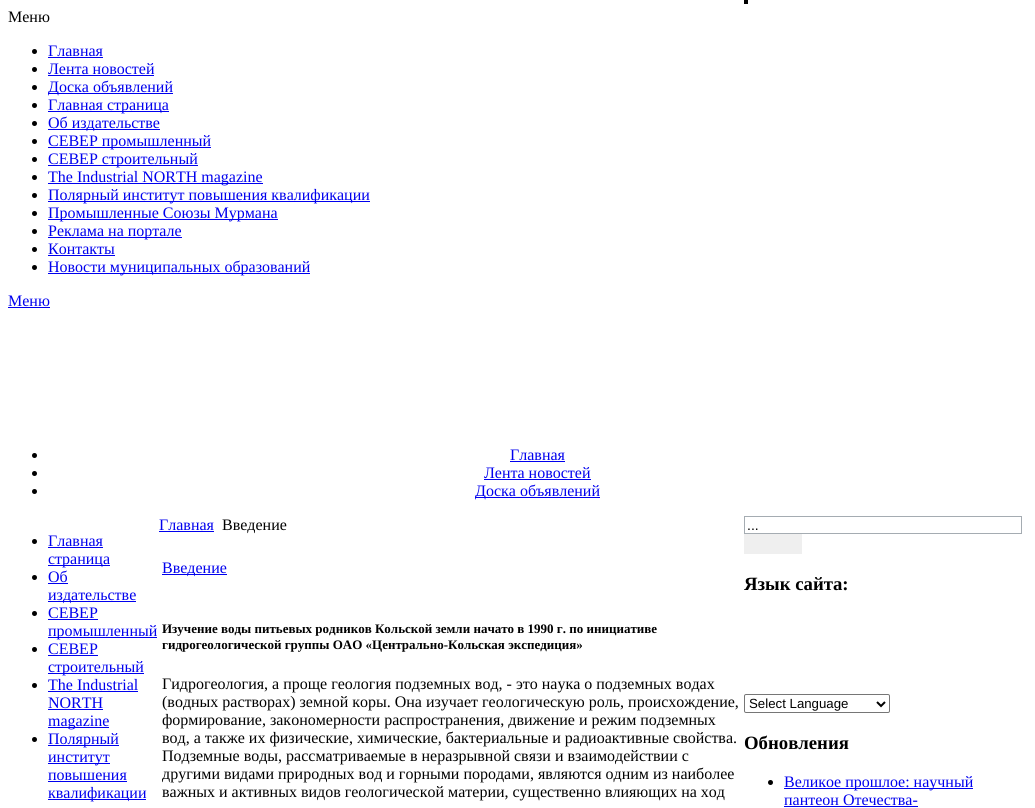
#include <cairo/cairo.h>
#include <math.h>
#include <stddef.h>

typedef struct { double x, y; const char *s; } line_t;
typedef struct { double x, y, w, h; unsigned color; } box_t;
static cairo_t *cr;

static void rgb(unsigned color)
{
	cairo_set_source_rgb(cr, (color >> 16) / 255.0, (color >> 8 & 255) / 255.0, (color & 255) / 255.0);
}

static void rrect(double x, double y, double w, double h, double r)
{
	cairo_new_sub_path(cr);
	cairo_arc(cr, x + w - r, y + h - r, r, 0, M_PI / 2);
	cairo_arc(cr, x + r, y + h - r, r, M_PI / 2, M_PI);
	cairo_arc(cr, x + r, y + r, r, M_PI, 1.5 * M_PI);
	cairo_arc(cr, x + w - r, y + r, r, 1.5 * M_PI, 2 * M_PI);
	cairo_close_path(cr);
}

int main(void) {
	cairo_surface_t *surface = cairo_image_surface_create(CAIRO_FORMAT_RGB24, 1035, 808);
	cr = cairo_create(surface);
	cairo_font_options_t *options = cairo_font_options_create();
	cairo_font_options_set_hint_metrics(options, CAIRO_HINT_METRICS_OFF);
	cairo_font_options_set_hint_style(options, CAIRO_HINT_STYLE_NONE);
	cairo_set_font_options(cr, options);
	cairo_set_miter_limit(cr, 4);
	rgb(0xffffff);
	cairo_paint(cr);
	rgb(0x000000);
	cairo_arc(cr, 34.5, 51.5, 2.5, 0, 2 * M_PI);
	cairo_fill(cr);
	rgb(0x0000ee);
	cairo_rectangle(cr, 48, 57, 55, 1);
	cairo_fill(cr);
	rgb(0x000000);
	cairo_arc(cr, 34.5, 69.5, 2.5, 0, 2 * M_PI);
	cairo_fill(cr);
	rgb(0x0000ee);
	cairo_rectangle(cr, 48, 75, 106, 1);
	cairo_fill(cr);
	rgb(0x000000);
	cairo_arc(cr, 34.5, 87.5, 2.5, 0, 2 * M_PI);
	cairo_fill(cr);
	rgb(0x0000ee);
	cairo_rectangle(cr, 48, 93, 125, 1);
	cairo_fill(cr);
	rgb(0x000000);
	cairo_arc(cr, 34.5, 105.5, 2.5, 0, 2 * M_PI);
	cairo_fill(cr);
	rgb(0x0000ee);
	cairo_rectangle(cr, 48, 111, 121, 1);
	cairo_fill(cr);
	rgb(0x000000);
	cairo_arc(cr, 34.5, 123.5, 2.5, 0, 2 * M_PI);
	cairo_fill(cr);
	rgb(0x0000ee);
	cairo_rectangle(cr, 48, 129, 112, 1);
	cairo_fill(cr);
	rgb(0x000000);
	cairo_arc(cr, 34.5, 141.5, 2.5, 0, 2 * M_PI);
	cairo_fill(cr);
	rgb(0x0000ee);
	cairo_rectangle(cr, 48, 147, 163, 1);
	cairo_fill(cr);
	rgb(0x000000);
	cairo_arc(cr, 34.5, 159.5, 2.5, 0, 2 * M_PI);
	cairo_fill(cr);
	rgb(0x0000ee);
	cairo_rectangle(cr, 48, 165, 150, 1);
	cairo_fill(cr);
	rgb(0x000000);
	cairo_arc(cr, 34.5, 177.5, 2.5, 0, 2 * M_PI);
	cairo_fill(cr);
	rgb(0x0000ee);
	cairo_rectangle(cr, 48, 183, 215, 1);
	cairo_fill(cr);
	rgb(0x000000);
	cairo_arc(cr, 34.5, 195.5, 2.5, 0, 2 * M_PI);
	cairo_fill(cr);
	rgb(0x0000ee);
	cairo_rectangle(cr, 48, 201, 322, 1);
	cairo_fill(cr);
	rgb(0x000000);
	cairo_arc(cr, 34.5, 213.5, 2.5, 0, 2 * M_PI);
	cairo_fill(cr);
	rgb(0x0000ee);
	cairo_rectangle(cr, 48, 219, 230, 1);
	cairo_fill(cr);
	rgb(0x000000);
	cairo_arc(cr, 34.5, 231.5, 2.5, 0, 2 * M_PI);
	cairo_fill(cr);
	rgb(0x0000ee);
	cairo_rectangle(cr, 48, 237, 134, 1);
	cairo_fill(cr);
	rgb(0x000000);
	cairo_arc(cr, 34.5, 249.5, 2.5, 0, 2 * M_PI);
	cairo_fill(cr);
	rgb(0x0000ee);
	cairo_rectangle(cr, 48, 255, 67, 1);
	cairo_fill(cr);
	rgb(0x000000);
	cairo_arc(cr, 34.5, 267.5, 2.5, 0, 2 * M_PI);
	cairo_fill(cr);
	rgb(0x0000ee);
	cairo_rectangle(cr, 48, 273, 262, 1);
	cairo_fill(cr);
	cairo_rectangle(cr, 8, 307, 42, 1);
	cairo_fill(cr);
	rgb(0x000000);
	cairo_arc(cr, 34.5, 455.5, 2.5, 0, 2 * M_PI);
	cairo_fill(cr);
	rgb(0x0000ee);
	cairo_rectangle(cr, 510, 461, 55, 1);
	cairo_fill(cr);
	rgb(0x000000);
	cairo_arc(cr, 34.5, 473.5, 2.5, 0, 2 * M_PI);
	cairo_fill(cr);
	rgb(0x0000ee);
	cairo_rectangle(cr, 484, 479, 107, 1);
	cairo_fill(cr);
	rgb(0x000000);
	cairo_arc(cr, 34.5, 491.5, 2.5, 0, 2 * M_PI);
	cairo_fill(cr);
	rgb(0x0000ee);
	cairo_rectangle(cr, 475, 497, 125, 1);
	cairo_fill(cr);
	rgb(0x000000);
	cairo_arc(cr, 34.5, 541.5, 2.5, 0, 2 * M_PI);
	cairo_fill(cr);
	rgb(0x0000ee);
	cairo_rectangle(cr, 48, 547, 55, 1);
	cairo_fill(cr);
	cairo_rectangle(cr, 48, 565, 62, 1);
	cairo_fill(cr);
	rgb(0x000000);
	cairo_arc(cr, 34.5, 577.5, 2.5, 0, 2 * M_PI);
	cairo_fill(cr);
	rgb(0x0000ee);
	cairo_rectangle(cr, 48, 583, 20, 1);
	cairo_fill(cr);
	cairo_rectangle(cr, 48, 601, 88, 1);
	cairo_fill(cr);
	rgb(0x000000);
	cairo_arc(cr, 34.5, 613.5, 2.5, 0, 2 * M_PI);
	cairo_fill(cr);
	rgb(0x0000ee);
	cairo_rectangle(cr, 48, 619, 50, 1);
	cairo_fill(cr);
	cairo_rectangle(cr, 48, 637, 109, 1);
	cairo_fill(cr);
	rgb(0x000000);
	cairo_arc(cr, 34.5, 649.5, 2.5, 0, 2 * M_PI);
	cairo_fill(cr);
	rgb(0x0000ee);
	cairo_rectangle(cr, 48, 655, 50, 1);
	cairo_fill(cr);
	cairo_rectangle(cr, 48, 673, 96, 1);
	cairo_fill(cr);
	rgb(0x000000);
	cairo_arc(cr, 34.5, 685.5, 2.5, 0, 2 * M_PI);
	cairo_fill(cr);
	{
		static const box_t items[] = {
			{48, 691, 90, 1, 0x0000ee},
			{48, 709, 55, 1, 0x0000ee},
			{48, 727, 61, 1, 0x0000ee},
		};
		for (size_t i = 0; i < sizeof items / sizeof *items; i++) {
			rgb(items[i].color);
			cairo_rectangle(cr, items[i].x, items[i].y, items[i].w, items[i].h);
			cairo_fill(cr);
		}
	}
	rgb(0x000000);
	cairo_arc(cr, 34.5, 739.5, 2.5, 0, 2 * M_PI);
	cairo_fill(cr);
	{
		static const box_t items[] = {
			{48, 745, 71, 1, 0x0000ee},
			{48, 763, 62, 1, 0x0000ee},
			{48, 781, 79, 1, 0x0000ee},
			{48, 799, 98, 1, 0x0000ee},
			{159, 531, 55, 1, 0x0000ee},
			{162, 574, 65, 1, 0x0000ee},
			{744, 0, 4, 4, 0x000000},
		};
		for (size_t i = 0; i < sizeof items / sizeof *items; i++) {
			rgb(items[i].color);
			cairo_rectangle(cr, items[i].x, items[i].y, items[i].w, items[i].h);
			cairo_fill(cr);
		}
	}
	cairo_rectangle(cr, 744.5, 516.5, 277, 17);
	rgb(0xa5acb2);
	cairo_set_line_width(cr, 1);
	cairo_stroke(cr);
	rgb(0xefefef);
	cairo_rectangle(cr, 744, 534, 58, 20);
	cairo_fill(cr);
	rrect(744.5, 694.5, 145, 18, 1.5);
	rgb(0x767676);
	cairo_stroke(cr);
	cairo_new_path(cr);
	cairo_move_to(cr, 877, 702);
	cairo_line_to(cr, 881, 706);
	cairo_line_to(cr, 885, 702);
	rgb(0x000000);
	cairo_set_line_width(cr, 2);
	cairo_stroke(cr);
	cairo_arc(cr, 770.5, 782.5, 2.5, 0, 2 * M_PI);
	cairo_fill(cr);
	rgb(0x0000ee);
	cairo_rectangle(cr, 784, 788, 189, 1);
	cairo_fill(cr);
	cairo_rectangle(cr, 784, 806, 134, 1);
	cairo_fill(cr);
	cairo_select_font_face(cr, "Liberation Serif", CAIRO_FONT_SLANT_NORMAL, CAIRO_FONT_WEIGHT_NORMAL);
	cairo_set_font_size(cr, 16);
	rgb(0x000000);
	cairo_move_to(cr, 8, 22);
	cairo_show_text(cr, "Меню");
	rgb(0x0000ee);
	{
		static const line_t items[] = {
			{48, 56, "Главная"},
			{48, 74, "Лента новостей"},
			{48, 92, "Доска объявлений"},
			{48, 110, "Главная страница"},
			{48, 128, "Об издательстве"},
			{48, 146, "СЕВЕР промышленный"},
			{48, 164, "СЕВЕР строительный"},
			{48, 182, "The Industrial NORTH magazine"},
			{48, 200, "Полярный институт повышения квалификации"},
			{48, 218, "Промышленные Союзы Мурмана"},
			{48, 236, "Реклама на портале"},
			{48, 254, "Контакты"},
			{48, 272, "Новости муниципальных образований"},
			{8, 306, "Меню"},
			{510, 460, "Главная"},
			{484, 478, "Лента новостей"},
			{475, 496, "Доска объявлений"},
			{48, 546, "Главная"},
			{48, 564, "страница"},
			{48, 582, "Об"},
			{48, 600, "издательстве"},
			{48, 618, "СЕВЕР"},
			{48, 636, "промышленный"},
			{48, 654, "СЕВЕР"},
			{48, 672, "строительный"},
			{48, 690, "The Industrial"},
			{48, 708, "NORTH"},
			{48, 726, "magazine"},
			{48, 744, "Полярный"},
			{48, 762, "институт"},
			{48, 780, "повышения"},
			{48, 798, "квалификации"},
			{159, 530, "Главная"},
		};
		for (size_t i = 0; i < sizeof items / sizeof *items; i++) {
			cairo_move_to(cr, items[i].x, items[i].y);
			cairo_show_text(cr, items[i].s);
		}
	}
	rgb(0x000000);
	cairo_move_to(cr, 222, 530);
	cairo_show_text(cr, "Введение");
	rgb(0x0000ee);
	cairo_move_to(cr, 162, 573);
	cairo_show_text(cr, "Введение");
	cairo_select_font_face(cr, "Liberation Serif", CAIRO_FONT_SLANT_NORMAL, CAIRO_FONT_WEIGHT_BOLD);
	cairo_set_font_size(cr, 13);
	rgb(0x000000);
	cairo_move_to(cr, 162, 633);
	cairo_show_text(cr, "Изучение воды питьевых родников Кольской земли начато в 1990 г. по инициативе");
	cairo_move_to(cr, 162, 649);
	cairo_show_text(cr, "гидрогеологической группы ОАО «Центрально-Кольская экспедиция»");
	cairo_select_font_face(cr, "Liberation Serif", CAIRO_FONT_SLANT_NORMAL, CAIRO_FONT_WEIGHT_NORMAL);
	cairo_set_font_size(cr, 16);
	{
		static const line_t items[] = {
			{162, 689, "Гидрогеология, а проще геология подземных вод, - это наука о подземных водах"},
			{162, 707, "(водных растворах) земной коры. Она изучает геологическую роль, происхождение,"},
			{162, 725, "формирование, закономерности распространения, движение и режим подземных"},
			{162, 743, "вод, а также их физические, химические, бактериальные и радиоактивные свойства."},
			{162, 761, "Подземные воды, рассматриваемые в неразрывной связи и взаимодействии с"},
			{162, 779, "другими видами природных вод и горными породами, являются одним из наиболее"},
			{162, 797, "важных и активных видов геологической материи, существенно влияющих на ход"},
		};
		for (size_t i = 0; i < sizeof items / sizeof *items; i++) {
			cairo_move_to(cr, items[i].x, items[i].y);
			cairo_show_text(cr, items[i].s);
		}
	}
	cairo_select_font_face(cr, "Liberation Sans", CAIRO_FONT_SLANT_NORMAL, CAIRO_FONT_WEIGHT_NORMAL);
	cairo_set_font_size(cr, 14);
	cairo_move_to(cr, 747, 530);
	cairo_show_text(cr, "...");
	cairo_select_font_face(cr, "Liberation Serif", CAIRO_FONT_SLANT_NORMAL, CAIRO_FONT_WEIGHT_BOLD);
	cairo_set_font_size(cr, 18.75);
	cairo_move_to(cr, 744, 590);
	cairo_show_text(cr, "Язык сайта:");
	cairo_select_font_face(cr, "Liberation Sans", CAIRO_FONT_SLANT_NORMAL, CAIRO_FONT_WEIGHT_NORMAL);
	cairo_set_font_size(cr, 13.25);
	cairo_move_to(cr, 749, 708);
	cairo_show_text(cr, "Select Language");
	cairo_select_font_face(cr, "Liberation Serif", CAIRO_FONT_SLANT_NORMAL, CAIRO_FONT_WEIGHT_BOLD);
	cairo_set_font_size(cr, 18.75);
	cairo_move_to(cr, 744, 749);
	cairo_show_text(cr, "Обновления");
	cairo_select_font_face(cr, "Liberation Serif", CAIRO_FONT_SLANT_NORMAL, CAIRO_FONT_WEIGHT_NORMAL);
	cairo_set_font_size(cr, 16);
	rgb(0x0000ee);
	cairo_move_to(cr, 784, 787);
	cairo_show_text(cr, "Великое прошлое: научный");
	cairo_move_to(cr, 784, 805);
	cairo_show_text(cr, "пантеон Отечества-");
	cairo_surface_write_to_png(surface, "page.png");
	cairo_font_options_destroy(options);
	cairo_destroy(cr);
	cairo_surface_destroy(surface);
	return 0;
}
